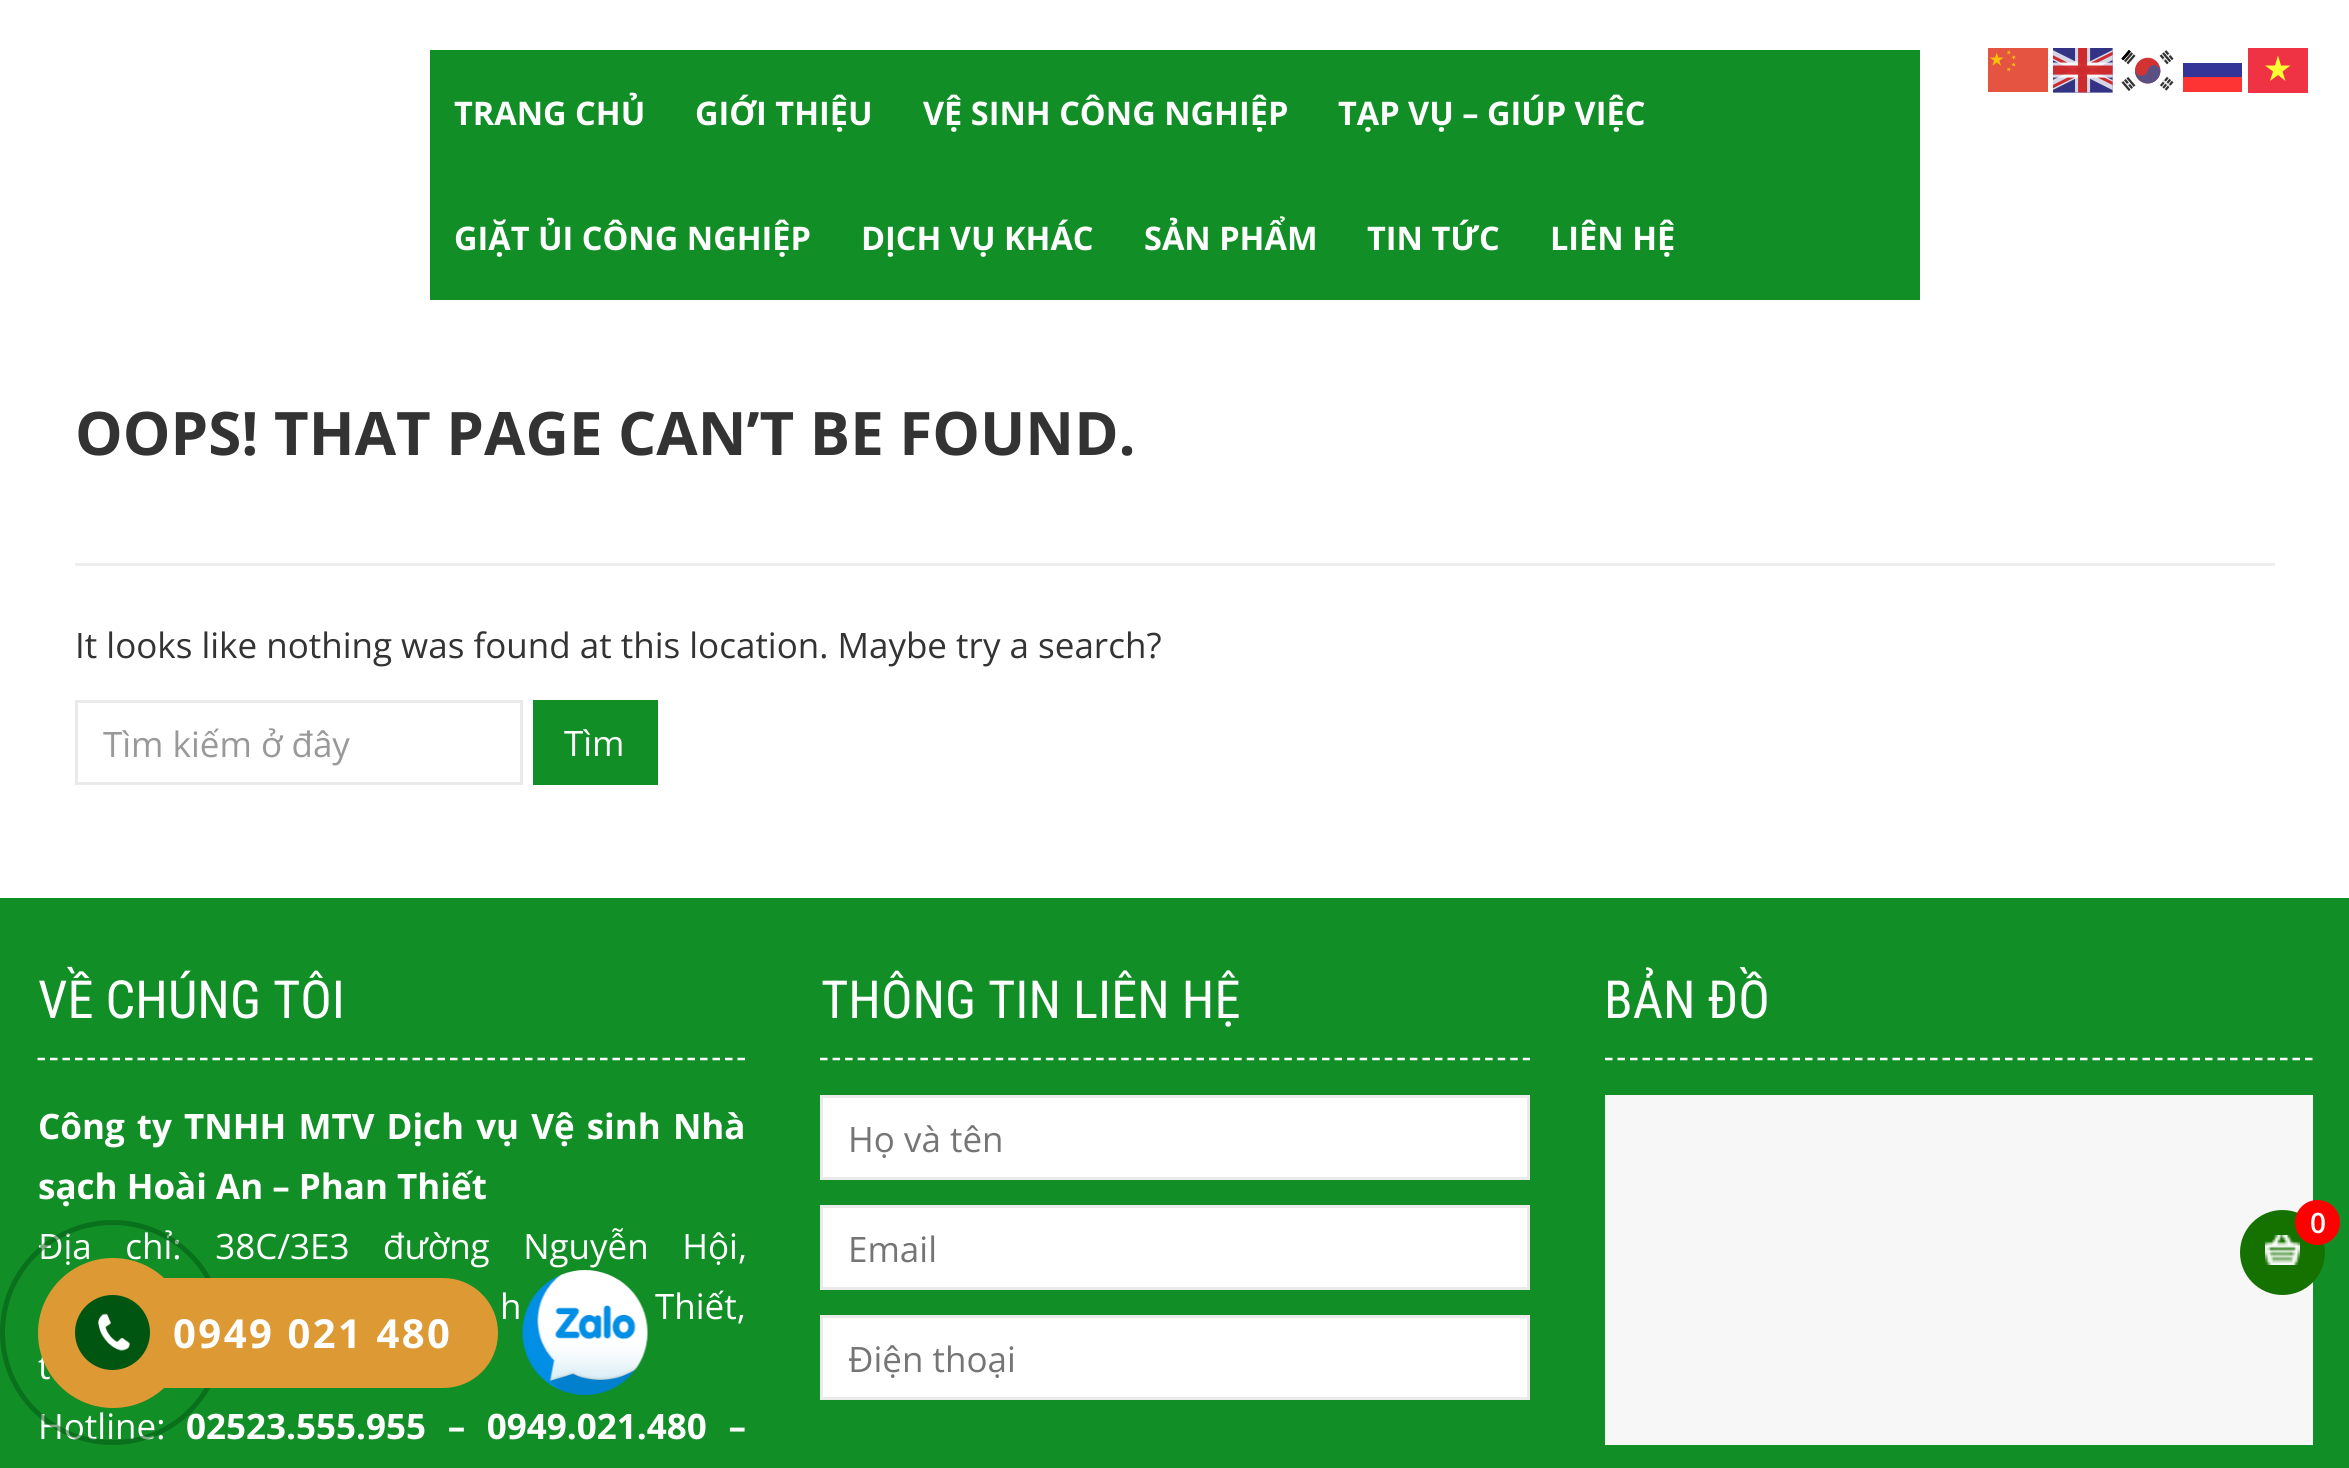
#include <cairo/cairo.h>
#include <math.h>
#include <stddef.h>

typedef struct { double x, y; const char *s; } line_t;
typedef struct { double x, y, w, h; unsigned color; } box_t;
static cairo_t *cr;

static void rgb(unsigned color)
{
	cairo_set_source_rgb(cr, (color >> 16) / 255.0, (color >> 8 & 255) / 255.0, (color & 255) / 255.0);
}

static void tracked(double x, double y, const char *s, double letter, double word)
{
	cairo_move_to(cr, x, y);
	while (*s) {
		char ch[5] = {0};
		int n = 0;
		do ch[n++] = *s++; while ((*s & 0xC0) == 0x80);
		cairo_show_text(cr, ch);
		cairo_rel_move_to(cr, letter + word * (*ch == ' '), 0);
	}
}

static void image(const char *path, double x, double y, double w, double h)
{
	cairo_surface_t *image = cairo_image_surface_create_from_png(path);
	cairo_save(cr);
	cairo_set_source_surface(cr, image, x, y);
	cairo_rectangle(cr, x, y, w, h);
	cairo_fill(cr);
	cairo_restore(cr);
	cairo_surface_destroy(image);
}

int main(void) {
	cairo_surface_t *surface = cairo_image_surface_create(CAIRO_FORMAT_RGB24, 2349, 1468);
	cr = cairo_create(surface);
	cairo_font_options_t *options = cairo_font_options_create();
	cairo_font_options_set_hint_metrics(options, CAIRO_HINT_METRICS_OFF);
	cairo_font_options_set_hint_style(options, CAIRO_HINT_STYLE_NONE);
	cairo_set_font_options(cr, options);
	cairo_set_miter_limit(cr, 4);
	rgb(0xffffff);
	cairo_paint(cr);
	image("img/1.png", 1988, 48, 60, 44);
	image("img/2.png", 2053, 48, 60, 45);
	image("img/3.png", 2121, 50, 53, 41);
	rgb(0xf03344);
	cairo_rectangle(cr, 2248, 48, 60, 45);
	cairo_fill(cr);
	rgb(0x343498);
	cairo_rectangle(cr, 2183, 63, 59, 14);
	cairo_fill(cr);
	rgb(0xffff33);
	cairo_set_fill_rule(cr, CAIRO_FILL_RULE_EVEN_ODD);
	cairo_new_path(cr);
	cairo_move_to(cr, 2285.5, 81);
	cairo_line_to(cr, 2278, 75);
	cairo_line_to(cr, 2270, 81);
	cairo_line_to(cr, 2273, 71.5);
	cairo_line_to(cr, 2265, 65.5);
	cairo_line_to(cr, 2275, 65.5);
	cairo_line_to(cr, 2278, 55.5);
	cairo_line_to(cr, 2281, 65.5);
	cairo_line_to(cr, 2290.5, 65.5);
	cairo_line_to(cr, 2282.5, 71.5);
	cairo_close_path(cr);
	cairo_fill(cr);
	{
		static const box_t items[] = {
			{2183, 77, 59, 15, 0xfe3434},
			{430, 50, 1490, 250, 0x128e27},
			{75, 563, 2200, 3, 0xeeeeee},
		};
		for (size_t i = 0; i < sizeof items / sizeof *items; i++) {
			rgb(items[i].color);
			cairo_rectangle(cr, items[i].x, items[i].y, items[i].w, items[i].h);
			cairo_fill(cr);
		}
	}
	cairo_rectangle(cr, 76.5, 701.5, 445, 82);
	rgb(0xeaeaea);
	cairo_set_line_width(cr, 3);
	cairo_stroke(cr);
	rgb(0x128e27);
	cairo_rectangle(cr, 533, 700, 125, 85);
	cairo_fill(cr);
	cairo_rectangle(cr, 0, 898, 2349, 570);
	cairo_fill(cr);
	cairo_new_path(cr);
	cairo_move_to(cr, 37.5, 1059);
	cairo_line_to(cr, 745, 1059);
	rgb(0xffffff);
	cairo_set_line_width(cr, 2.5);
	cairo_set_dash(cr, (double[]){7.5, 5}, 2, 0);
	cairo_stroke(cr);
	cairo_new_path(cr);
	cairo_move_to(cr, 820, 1059);
	cairo_line_to(cr, 1530, 1059);
	cairo_set_dash(cr, (double[]){7.5, 5.05}, 2, 0);
	cairo_stroke(cr);
	cairo_rectangle(cr, 821.5, 1096.5, 707, 82);
	cairo_fill_preserve(cr);
	rgb(0xeaeaea);
	cairo_set_line_width(cr, 3);
	cairo_set_dash(cr, NULL, 0, 0);
	cairo_stroke(cr);
	rgb(0xffffff);
	cairo_rectangle(cr, 821.5, 1206.5, 707, 82);
	cairo_fill_preserve(cr);
	rgb(0xeaeaea);
	cairo_stroke(cr);
	rgb(0xffffff);
	cairo_rectangle(cr, 821.5, 1316.5, 707, 82);
	cairo_fill_preserve(cr);
	rgb(0xeaeaea);
	cairo_stroke(cr);
	cairo_new_path(cr);
	cairo_move_to(cr, 1605, 1059);
	cairo_line_to(cr, 2312.5, 1059);
	rgb(0xffffff);
	cairo_set_line_width(cr, 2.5);
	cairo_set_dash(cr, (double[]){7.5, 5}, 2, 0);
	cairo_stroke(cr);
	rgb(0xf7f7f7);
	cairo_rectangle(cr, 1605, 1095, 708, 350);
	cairo_fill(cr);
	rgb(0x157200);
	cairo_arc(cr, 2282.5, 1252.5, 42.5, 0, 2 * M_PI);
	cairo_fill(cr);
	image("img/4.png", 2265, 1235, 35, 30);
	rgb(0xff0000);
	cairo_arc(cr, 2317.5, 1222.5, 22.5, 0, 2 * M_PI);
	cairo_fill(cr);
	image("img/6.png", 522, 1270, 126, 125);
	cairo_select_font_face(cr, "Open Sans", CAIRO_FONT_SLANT_NORMAL, CAIRO_FONT_WEIGHT_BOLD);
	cairo_set_font_size(cr, 32.5);
	rgb(0xffffff);
	{
		static const line_t items[] = {
			{454, 125, "TRANG CHỦ"},
			{695, 125, "GIỚI THIỆU"},
			{923, 125, "VỆ SINH CÔNG NGHIỆP"},
			{1338, 125, "TẠP VỤ – GIÚP VIỆC"},
			{454, 250, "GIẶT ỦI CÔNG NGHIỆP"},
			{861, 250, "DỊCH VỤ KHÁC"},
			{1144, 250, "SẢN PHẨM"},
			{1367, 250, "TIN TỨC"},
			{1550, 250, "LIÊN HỆ"},
		};
		for (size_t i = 0; i < sizeof items / sizeof *items; i++) {
			cairo_move_to(cr, items[i].x, items[i].y);
			cairo_show_text(cr, items[i].s);
		}
	}
	cairo_set_font_size(cr, 60);
	rgb(0x333333);
	cairo_move_to(cr, 75, 455);
	cairo_show_text(cr, "OOPS! THAT PAGE CAN’T BE FOUND.");
	cairo_select_font_face(cr, "Open Sans", CAIRO_FONT_SLANT_NORMAL, CAIRO_FONT_WEIGHT_NORMAL);
	cairo_set_font_size(cr, 35);
	cairo_move_to(cr, 75, 658);
	cairo_show_text(cr, "It looks like nothing was found at this location. Maybe try a search?");
	cairo_save(cr);
	cairo_set_fill_rule(cr, CAIRO_FILL_RULE_WINDING);
	cairo_rectangle(cr, 103, 720, 392, 48);
	cairo_clip(cr);
	rgb(0x999999);
	cairo_move_to(cr, 103, 757);
	cairo_show_text(cr, "Tìm kiếm ở đây");
	cairo_restore(cr);
	rgb(0xffffff);
	cairo_move_to(cr, 564, 756);
	cairo_show_text(cr, "Tìm");
	cairo_select_font_face(cr, "Roboto Condensed", CAIRO_FONT_SLANT_NORMAL, CAIRO_FONT_WEIGHT_NORMAL);
	cairo_set_font_size(cr, 52.5);
	cairo_move_to(cr, 38, 1018);
	cairo_show_text(cr, "VỀ CHÚNG TÔI");
	cairo_select_font_face(cr, "Open Sans", CAIRO_FONT_SLANT_NORMAL, CAIRO_FONT_WEIGHT_BOLD);
	cairo_set_font_size(cr, 35);
	tracked(38, 1139, "Công ty TNHH MTV Dịch vụ Vệ sinh Nhà", 0, 3);
	cairo_move_to(cr, 38, 1199);
	cairo_show_text(cr, "sạch Hoài An – Phan Thiết");
	cairo_select_font_face(cr, "Open Sans", CAIRO_FONT_SLANT_NORMAL, CAIRO_FONT_WEIGHT_NORMAL);
	tracked(38, 1259, "Địa chỉ: 38C/3E3 đường Nguyễn Hội,", 0, 24.5);
	tracked(500, 1319, "h", 0, 6);
	tracked(655, 1319, "Thiết,", 0, 6);
	cairo_move_to(cr, 38, 1379);
	cairo_show_text(cr, "t");
	cairo_move_to(cr, 38, 1439);
	cairo_show_text(cr, "Hotline:");
	cairo_select_font_face(cr, "Open Sans", CAIRO_FONT_SLANT_NORMAL, CAIRO_FONT_WEIGHT_BOLD);
	tracked(186, 1439, "02523.555.955 – 0949.021.480 –", 0, 12.5);
	cairo_select_font_face(cr, "Roboto Condensed", CAIRO_FONT_SLANT_NORMAL, CAIRO_FONT_WEIGHT_NORMAL);
	cairo_set_font_size(cr, 52.5);
	cairo_move_to(cr, 821, 1018);
	cairo_show_text(cr, "THÔNG TIN LIÊN HỆ");
	cairo_select_font_face(cr, "Open Sans", CAIRO_FONT_SLANT_NORMAL, CAIRO_FONT_WEIGHT_NORMAL);
	cairo_set_font_size(cr, 35);
	rgb(0x757575);
	{
		static const line_t items[] = {
			{848, 1152, "Họ và tên"},
			{848, 1262, "Email"},
			{848, 1372, "Điện thoại"},
		};
		for (size_t i = 0; i < sizeof items / sizeof *items; i++) {
			cairo_move_to(cr, items[i].x, items[i].y);
			cairo_show_text(cr, items[i].s);
		}
	}
	cairo_select_font_face(cr, "Roboto Condensed", CAIRO_FONT_SLANT_NORMAL, CAIRO_FONT_WEIGHT_NORMAL);
	cairo_set_font_size(cr, 52.5);
	rgb(0xffffff);
	cairo_move_to(cr, 1604, 1018);
	cairo_show_text(cr, "BẢN ĐỒ");
	cairo_select_font_face(cr, "Open Sans SemiBold", CAIRO_FONT_SLANT_NORMAL, CAIRO_FONT_WEIGHT_NORMAL);
	cairo_set_font_size(cr, 28);
	cairo_move_to(cr, 2310, 1233);
	cairo_show_text(cr, "0");
	cairo_new_path(cr);
	cairo_arc(cr, 112.5, 1332.5, 110, 0, 2 * M_PI);
	cairo_set_source_rgba(cr, 0, 0.333, 0.063, 0.5);
	cairo_set_line_width(cr, 5);
	cairo_set_dash(cr, NULL, 0, 0);
	cairo_stroke(cr);
	rgb(0xdd9933);
	cairo_arc(cr, 113, 1333, 75, 0, 2 * M_PI);
	cairo_fill(cr);
	rgb(0x005510);
	cairo_arc(cr, 112.5, 1332.5, 37.5, 0, 2 * M_PI);
	cairo_fill(cr);
	image("img/5.png", 98, 1313, 32, 38);
	rgb(0xdd9933);
	cairo_new_path(cr);
	cairo_move_to(cr, 160, 1278);
	cairo_line_to(cr, 443, 1278);
	cairo_curve_to(cr, 473.5, 1278, 498, 1302.5, 498, 1333);
	cairo_curve_to(cr, 498, 1363.5, 473.5, 1388, 443, 1388);
	cairo_line_to(cr, 160, 1388);
	cairo_close_path(cr);
	cairo_fill(cr);
	cairo_select_font_face(cr, "Open Sans", CAIRO_FONT_SLANT_NORMAL, CAIRO_FONT_WEIGHT_BOLD);
	cairo_set_font_size(cr, 40);
	rgb(0xffffff);
	tracked(173, 1348, "0949 021 480", 2.5, 0);
	cairo_surface_write_to_png(surface, "page.png");
	cairo_font_options_destroy(options);
	cairo_destroy(cr);
	cairo_surface_destroy(surface);
	return 0;
}
